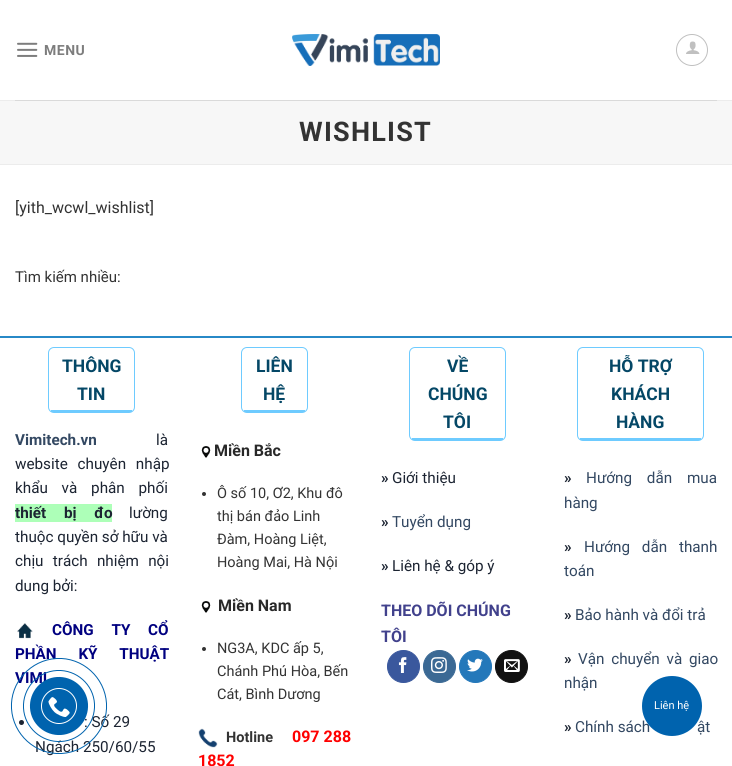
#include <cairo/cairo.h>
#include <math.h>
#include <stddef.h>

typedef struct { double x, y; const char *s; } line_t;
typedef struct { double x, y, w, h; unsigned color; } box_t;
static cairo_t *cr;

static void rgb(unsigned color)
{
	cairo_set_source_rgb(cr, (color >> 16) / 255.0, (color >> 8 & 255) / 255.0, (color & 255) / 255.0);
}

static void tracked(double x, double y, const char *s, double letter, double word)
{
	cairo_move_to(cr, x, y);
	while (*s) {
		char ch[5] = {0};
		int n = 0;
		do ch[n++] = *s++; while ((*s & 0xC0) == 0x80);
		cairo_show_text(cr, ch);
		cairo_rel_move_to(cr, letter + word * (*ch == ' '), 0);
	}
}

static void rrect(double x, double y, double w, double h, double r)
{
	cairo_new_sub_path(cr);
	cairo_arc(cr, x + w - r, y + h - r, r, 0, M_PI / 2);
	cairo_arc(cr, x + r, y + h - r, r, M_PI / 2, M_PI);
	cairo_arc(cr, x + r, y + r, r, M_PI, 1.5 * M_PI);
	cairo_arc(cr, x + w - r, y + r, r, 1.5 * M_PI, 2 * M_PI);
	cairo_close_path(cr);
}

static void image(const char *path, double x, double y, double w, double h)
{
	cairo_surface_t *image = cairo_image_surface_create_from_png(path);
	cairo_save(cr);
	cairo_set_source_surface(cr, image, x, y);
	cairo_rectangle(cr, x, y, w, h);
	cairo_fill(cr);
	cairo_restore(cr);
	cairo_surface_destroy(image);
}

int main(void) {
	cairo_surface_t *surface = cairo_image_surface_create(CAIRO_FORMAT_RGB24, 732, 766);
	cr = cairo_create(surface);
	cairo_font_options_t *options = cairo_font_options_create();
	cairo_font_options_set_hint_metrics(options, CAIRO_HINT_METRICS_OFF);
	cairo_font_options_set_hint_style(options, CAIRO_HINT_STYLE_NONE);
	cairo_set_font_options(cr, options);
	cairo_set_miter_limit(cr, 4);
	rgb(0xffffff);
	cairo_paint(cr);
	image("img/1.png", 17, 42, 21, 15);
	image("img/2.png", 292, 34, 148, 32);
	cairo_arc(cr, 692, 50, 15.5, 0, 2 * M_PI);
	rgb(0xc0c0c0);
	cairo_set_line_width(cr, 1);
	cairo_stroke(cr);
	image("img/3.png", 686, 41, 14, 13);
	{
		static const box_t items[] = {
			{0, 100, 732, 1, 0xececec},
			{15, 100, 702, 1, 0xdadada},
			{0, 101, 732, 63, 0xf7f7f7},
			{0, 164, 732, 1, 0xececec},
			{0, 336, 732, 2, 0x2789c7},
		};
		for (size_t i = 0; i < sizeof items / sizeof *items; i++) {
			rgb(items[i].color);
			cairo_rectangle(cr, items[i].x, items[i].y, items[i].w, items[i].h);
			cairo_fill(cr);
		}
	}
	rrect(48.5, 347.5, 86, 65, 5.5);
	rgb(0x6ecbff);
	cairo_stroke(cr);
	cairo_rectangle(cr, 51, 410, 81, 2);
	cairo_fill(cr);
	rgb(0xadffb8);
	cairo_rectangle(cr, 15, 504, 97, 18);
	cairo_fill(cr);
	image("img/4.png", 17, 623, 16, 16);
	rgb(0x1c2432);
	cairo_arc(cr, 21.5, 722.5, 2.5, 0, 2 * M_PI);
	cairo_fill(cr);
	rrect(241.5, 347.5, 66, 65, 5.5);
	rgb(0x6ecbff);
	cairo_stroke(cr);
	cairo_rectangle(cr, 244, 410, 61, 2);
	cairo_fill(cr);
	image("img/5.png", 201, 446, 10, 12);
	rgb(0x333333);
	cairo_arc(cr, 204, 494, 2, 0, 2 * M_PI);
	cairo_fill(cr);
	image("img/5.png", 201, 601, 10, 12);
	cairo_arc(cr, 204, 649, 2, 0, 2 * M_PI);
	cairo_fill(cr);
	image("img/6.png", 198, 728, 20, 20);
	rrect(409.5, 347.5, 96, 93, 5.5);
	rgb(0x6ecbff);
	cairo_stroke(cr);
	cairo_rectangle(cr, 412, 438, 91, 2);
	cairo_fill(cr);
	rgb(0x3a589d);
	cairo_arc(cr, 403.5, 666.5, 16, 0, 2 * M_PI);
	cairo_fill_preserve(cr);
	cairo_stroke(cr);
	image("img/7.png", 398, 657, 9, 16);
	rgb(0x3b6994);
	cairo_arc(cr, 439.5, 666.5, 16, 0, 2 * M_PI);
	cairo_fill_preserve(cr);
	cairo_stroke(cr);
	image("img/8.png", 431, 657, 16, 16);
	rgb(0x2478ba);
	cairo_arc(cr, 475.5, 666.5, 16, 0, 2 * M_PI);
	cairo_fill_preserve(cr);
	cairo_stroke(cr);
	image("img/9.png", 467, 658, 16, 14);
	rgb(0x111111);
	cairo_arc(cr, 511.5, 666.5, 16, 0, 2 * M_PI);
	cairo_fill_preserve(cr);
	cairo_stroke(cr);
	image("img/10.png", 504, 659, 16, 13);
	rrect(577.5, 347.5, 126, 93, 5.5);
	rgb(0x6ecbff);
	cairo_stroke(cr);
	cairo_rectangle(cr, 580, 438, 121, 2);
	cairo_fill(cr);
	cairo_select_font_face(cr, "Roboto", CAIRO_FONT_SLANT_NORMAL, CAIRO_FONT_WEIGHT_BOLD);
	cairo_set_font_size(cr, 14);
	rgb(0x7d7d7d);
	tracked(44, 55, "MENU", 0.5, 0);
	cairo_set_font_size(cr, 27);
	rgb(0x333333);
	tracked(299, 141, "WISHLIST", 1.25, 0);
	cairo_select_font_face(cr, "Roboto", CAIRO_FONT_SLANT_NORMAL, CAIRO_FONT_WEIGHT_NORMAL);
	cairo_set_font_size(cr, 16);
	cairo_move_to(cr, 15, 213);
	cairo_show_text(cr, "[yith_wcwl_wishlist]");
	cairo_set_font_size(cr, 15);
	cairo_move_to(cr, 15, 282);
	cairo_show_text(cr, "Tìm kiếm nhiều:");
	cairo_select_font_face(cr, "Roboto", CAIRO_FONT_SLANT_NORMAL, CAIRO_FONT_WEIGHT_BOLD);
	cairo_set_font_size(cr, 17.5);
	rgb(0x044766);
	cairo_move_to(cr, 62, 372);
	cairo_show_text(cr, "THÔNG");
	cairo_move_to(cr, 77, 400);
	cairo_show_text(cr, "TIN");
	cairo_set_font_size(cr, 15.25);
	rgb(0x334862);
	cairo_move_to(cr, 15, 445);
	cairo_show_text(cr, "Vimitech.vn");
	cairo_select_font_face(cr, "Roboto", CAIRO_FONT_SLANT_NORMAL, CAIRO_FONT_WEIGHT_NORMAL);
	rgb(0x1c2432);
	cairo_move_to(cr, 156, 445);
	cairo_show_text(cr, "là");
	tracked(15, 469, "website chuyên nhập", 0, 6);
	tracked(15, 493, "khẩu và phân phối", 0, 10);
	cairo_select_font_face(cr, "Roboto", CAIRO_FONT_SLANT_NORMAL, CAIRO_FONT_WEIGHT_BOLD);
	tracked(15, 518, "thiết bị đo", 0, 14);
	cairo_select_font_face(cr, "Roboto", CAIRO_FONT_SLANT_NORMAL, CAIRO_FONT_WEIGHT_NORMAL);
	cairo_move_to(cr, 129, 518);
	cairo_show_text(cr, "lường");
	cairo_move_to(cr, 15, 542);
	cairo_show_text(cr, "thuộc quyền sở hữu và");
	tracked(15, 566, "chịu trách nhiệm nội", 0, 5.5);
	cairo_move_to(cr, 15, 591);
	cairo_show_text(cr, "dung bởi:");
	cairo_select_font_face(cr, "Roboto", CAIRO_FONT_SLANT_NORMAL, CAIRO_FONT_WEIGHT_BOLD);
	rgb(0x000080);
	tracked(52, 635, "CÔNG TY CỔ", 0, 14);
	tracked(15, 659, "PHẦN KỸ THUẬT", 0, 18);
	cairo_move_to(cr, 15, 683);
	cairo_show_text(cr, "VIMI");
	cairo_select_font_face(cr, "Roboto", CAIRO_FONT_SLANT_NORMAL, CAIRO_FONT_WEIGHT_NORMAL);
	rgb(0x1c2432);
	cairo_move_to(cr, 84, 727);
	cairo_show_text(cr, ": Số 29");
	cairo_move_to(cr, 35, 752);
	cairo_show_text(cr, "Ngách 250/60/55");
	cairo_select_font_face(cr, "Roboto", CAIRO_FONT_SLANT_NORMAL, CAIRO_FONT_WEIGHT_BOLD);
	cairo_set_font_size(cr, 17.5);
	rgb(0x044766);
	cairo_move_to(cr, 256, 372);
	cairo_show_text(cr, "LIÊN");
	cairo_move_to(cr, 263, 400);
	cairo_show_text(cr, "HỆ");
	cairo_set_font_size(cr, 16);
	rgb(0x282828);
	cairo_move_to(cr, 214, 456);
	cairo_show_text(cr, "Miền Bắc");
	cairo_select_font_face(cr, "Roboto", CAIRO_FONT_SLANT_NORMAL, CAIRO_FONT_WEIGHT_NORMAL);
	cairo_set_font_size(cr, 14.5);
	rgb(0x333333);
	{
		static const line_t items[] = {
			{217, 498, "Ô số 10, Ơ2, Khu đô"},
			{217, 521, "thị bán đảo Linh"},
			{217, 544, "Đàm, Hoàng Liệt,"},
			{217, 567, "Hoàng Mai, Hà Nội"},
		};
		for (size_t i = 0; i < sizeof items / sizeof *items; i++) {
			cairo_move_to(cr, items[i].x, items[i].y);
			cairo_show_text(cr, items[i].s);
		}
	}
	cairo_select_font_face(cr, "Roboto", CAIRO_FONT_SLANT_NORMAL, CAIRO_FONT_WEIGHT_BOLD);
	cairo_set_font_size(cr, 16);
	rgb(0x282828);
	cairo_move_to(cr, 218, 611);
	cairo_show_text(cr, "Miền Nam");
	cairo_select_font_face(cr, "Roboto", CAIRO_FONT_SLANT_NORMAL, CAIRO_FONT_WEIGHT_NORMAL);
	cairo_set_font_size(cr, 14.5);
	rgb(0x333333);
	{
		static const line_t items[] = {
			{217, 653, "NG3A, KDC ấp 5,"},
			{217, 676, "Chánh Phú Hòa, Bến"},
			{217, 699, "Cát, Bình Dương"},
		};
		for (size_t i = 0; i < sizeof items / sizeof *items; i++) {
			cairo_move_to(cr, items[i].x, items[i].y);
			cairo_show_text(cr, items[i].s);
		}
	}
	cairo_select_font_face(cr, "Roboto", CAIRO_FONT_SLANT_NORMAL, CAIRO_FONT_WEIGHT_BOLD);
	cairo_move_to(cr, 226, 742);
	cairo_show_text(cr, "Hotline");
	cairo_set_font_size(cr, 16);
	rgb(0xff0000);
	cairo_move_to(cr, 292, 742);
	cairo_show_text(cr, "097 288");
	cairo_move_to(cr, 198, 766);
	cairo_show_text(cr, "1852");
	cairo_set_font_size(cr, 17.5);
	rgb(0x044766);
	{
		static const line_t items[] = {
			{447, 372, "VỀ"},
			{428, 400, "CHÚNG"},
			{443, 428, "TÔI"},
		};
		for (size_t i = 0; i < sizeof items / sizeof *items; i++) {
			cairo_move_to(cr, items[i].x, items[i].y);
			cairo_show_text(cr, items[i].s);
		}
	}
	cairo_set_font_size(cr, 15.25);
	rgb(0x1c2432);
	cairo_move_to(cr, 381, 483);
	cairo_show_text(cr, "»");
	cairo_select_font_face(cr, "Roboto", CAIRO_FONT_SLANT_NORMAL, CAIRO_FONT_WEIGHT_NORMAL);
	cairo_move_to(cr, 392, 483);
	cairo_show_text(cr, "Giới thiệu");
	cairo_select_font_face(cr, "Roboto", CAIRO_FONT_SLANT_NORMAL, CAIRO_FONT_WEIGHT_BOLD);
	cairo_move_to(cr, 381, 527);
	cairo_show_text(cr, "»");
	cairo_select_font_face(cr, "Roboto", CAIRO_FONT_SLANT_NORMAL, CAIRO_FONT_WEIGHT_NORMAL);
	rgb(0x334862);
	cairo_move_to(cr, 392, 527);
	cairo_show_text(cr, "Tuyển dụng");
	cairo_select_font_face(cr, "Roboto", CAIRO_FONT_SLANT_NORMAL, CAIRO_FONT_WEIGHT_BOLD);
	rgb(0x1c2432);
	cairo_move_to(cr, 381, 571);
	cairo_show_text(cr, "»");
	cairo_select_font_face(cr, "Roboto", CAIRO_FONT_SLANT_NORMAL, CAIRO_FONT_WEIGHT_NORMAL);
	cairo_move_to(cr, 392, 571);
	cairo_show_text(cr, "Liên hệ & góp ý");
	cairo_select_font_face(cr, "Roboto", CAIRO_FONT_SLANT_NORMAL, CAIRO_FONT_WEIGHT_BOLD);
	cairo_set_font_size(cr, 16);
	rgb(0x41418c);
	cairo_move_to(cr, 381, 616);
	cairo_show_text(cr, "THEO DÕI CHÚNG");
	cairo_move_to(cr, 381, 642);
	cairo_show_text(cr, "TÔI");
	cairo_set_font_size(cr, 17.5);
	rgb(0x044766);
	{
		static const line_t items[] = {
			{609, 372, "HỖ TRỢ"},
			{611, 400, "KHÁCH"},
			{616, 428, "HÀNG"},
		};
		for (size_t i = 0; i < sizeof items / sizeof *items; i++) {
			cairo_move_to(cr, items[i].x, items[i].y);
			cairo_show_text(cr, items[i].s);
		}
	}
	cairo_set_font_size(cr, 15.25);
	rgb(0x1c2432);
	cairo_move_to(cr, 564, 483);
	cairo_show_text(cr, "»");
	cairo_select_font_face(cr, "Roboto", CAIRO_FONT_SLANT_NORMAL, CAIRO_FONT_WEIGHT_NORMAL);
	rgb(0x334862);
	tracked(586, 483, "Hướng dẫn mua", 0, 11);
	cairo_move_to(cr, 564, 508);
	cairo_show_text(cr, "hàng");
	cairo_select_font_face(cr, "Roboto", CAIRO_FONT_SLANT_NORMAL, CAIRO_FONT_WEIGHT_BOLD);
	rgb(0x1c2432);
	cairo_move_to(cr, 564, 552);
	cairo_show_text(cr, "»");
	cairo_select_font_face(cr, "Roboto", CAIRO_FONT_SLANT_NORMAL, CAIRO_FONT_WEIGHT_NORMAL);
	rgb(0x334862);
	tracked(584, 552, "Hướng dẫn thanh", 0, 8);
	cairo_move_to(cr, 564, 576);
	cairo_show_text(cr, "toán");
	cairo_select_font_face(cr, "Roboto", CAIRO_FONT_SLANT_NORMAL, CAIRO_FONT_WEIGHT_BOLD);
	rgb(0x1c2432);
	cairo_move_to(cr, 564, 620);
	cairo_show_text(cr, "»");
	cairo_select_font_face(cr, "Roboto", CAIRO_FONT_SLANT_NORMAL, CAIRO_FONT_WEIGHT_NORMAL);
	rgb(0x334862);
	cairo_move_to(cr, 575, 620);
	cairo_show_text(cr, "Bảo hành và đổi trả");
	cairo_select_font_face(cr, "Roboto", CAIRO_FONT_SLANT_NORMAL, CAIRO_FONT_WEIGHT_BOLD);
	rgb(0x1c2432);
	cairo_move_to(cr, 564, 664);
	cairo_show_text(cr, "»");
	cairo_select_font_face(cr, "Roboto", CAIRO_FONT_SLANT_NORMAL, CAIRO_FONT_WEIGHT_NORMAL);
	rgb(0x334862);
	tracked(578, 664, "Vận chuyển và giao", 0, 3);
	cairo_move_to(cr, 564, 688);
	cairo_show_text(cr, "nhận");
	cairo_select_font_face(cr, "Roboto", CAIRO_FONT_SLANT_NORMAL, CAIRO_FONT_WEIGHT_BOLD);
	rgb(0x1c2432);
	cairo_move_to(cr, 564, 732);
	cairo_show_text(cr, "»");
	cairo_select_font_face(cr, "Roboto", CAIRO_FONT_SLANT_NORMAL, CAIRO_FONT_WEIGHT_NORMAL);
	rgb(0x334862);
	cairo_move_to(cr, 575, 732);
	cairo_show_text(cr, "Chính sách");
	cairo_move_to(cr, 697, 732);
	cairo_show_text(cr, "ật");
	rgb(0x0063ae);
	cairo_new_path(cr);
	cairo_move_to(cr, 57, 677);
	cairo_curve_to(cr, 73, 676, 87, 688, 88, 704);
	cairo_curve_to(cr, 89, 720, 77, 734, 61, 735);
	cairo_curve_to(cr, 45, 736, 31, 724, 30, 708);
	cairo_curve_to(cr, 29, 692, 41, 678, 57, 677);
	cairo_close_path(cr);
	cairo_fill(cr);
	cairo_new_path(cr);
	cairo_move_to(cr, 57, 670.5);
	cairo_curve_to(cr, 76.5, 669.5, 93.5, 684.5, 94.5, 704);
	cairo_curve_to(cr, 95.5, 723.5, 80.5, 740.5, 61, 741.5);
	cairo_curve_to(cr, 41.5, 742.5, 24.5, 727.5, 23.5, 708);
	cairo_curve_to(cr, 22.5, 688.5, 37.5, 671.5, 57, 670.5);
	cairo_close_path(cr);
	cairo_stroke(cr);
	image("img/11.png", 48, 697, 22, 20);
	cairo_new_path(cr);
	cairo_move_to(cr, 56.5, 658.5);
	cairo_curve_to(cr, 82.5, 657, 105, 677.5, 106.5, 703.5);
	cairo_curve_to(cr, 108, 729.5, 87.5, 752, 61.5, 753.5);
	cairo_curve_to(cr, 35.5, 755, 13, 734.5, 11.5, 708.5);
	cairo_curve_to(cr, 10, 682.5, 30.5, 660, 56.5, 658.5);
	cairo_close_path(cr);
	cairo_stroke(cr);
	cairo_new_path(cr);
	cairo_move_to(cr, 58, 688.5);
	cairo_curve_to(cr, 67.5, 688, 76, 695.5, 76.5, 705);
	cairo_curve_to(cr, 77, 714.5, 69.5, 723, 60, 723.5);
	cairo_curve_to(cr, 50.5, 724, 42, 716.5, 41.5, 707);
	cairo_curve_to(cr, 41, 697.5, 48.5, 689, 58, 688.5);
	cairo_close_path(cr);
	rgb(0xffffff);
	cairo_stroke(cr);
	rgb(0x0063ae);
	cairo_arc(cr, 672, 706, 30, 0, 2 * M_PI);
	cairo_fill(cr);
	cairo_set_font_size(cr, 11);
	rgb(0xffffff);
	cairo_move_to(cr, 654, 709);
	cairo_show_text(cr, "Liên hệ");
	cairo_surface_write_to_png(surface, "page.png");
	cairo_font_options_destroy(options);
	cairo_destroy(cr);
	cairo_surface_destroy(surface);
	return 0;
}
